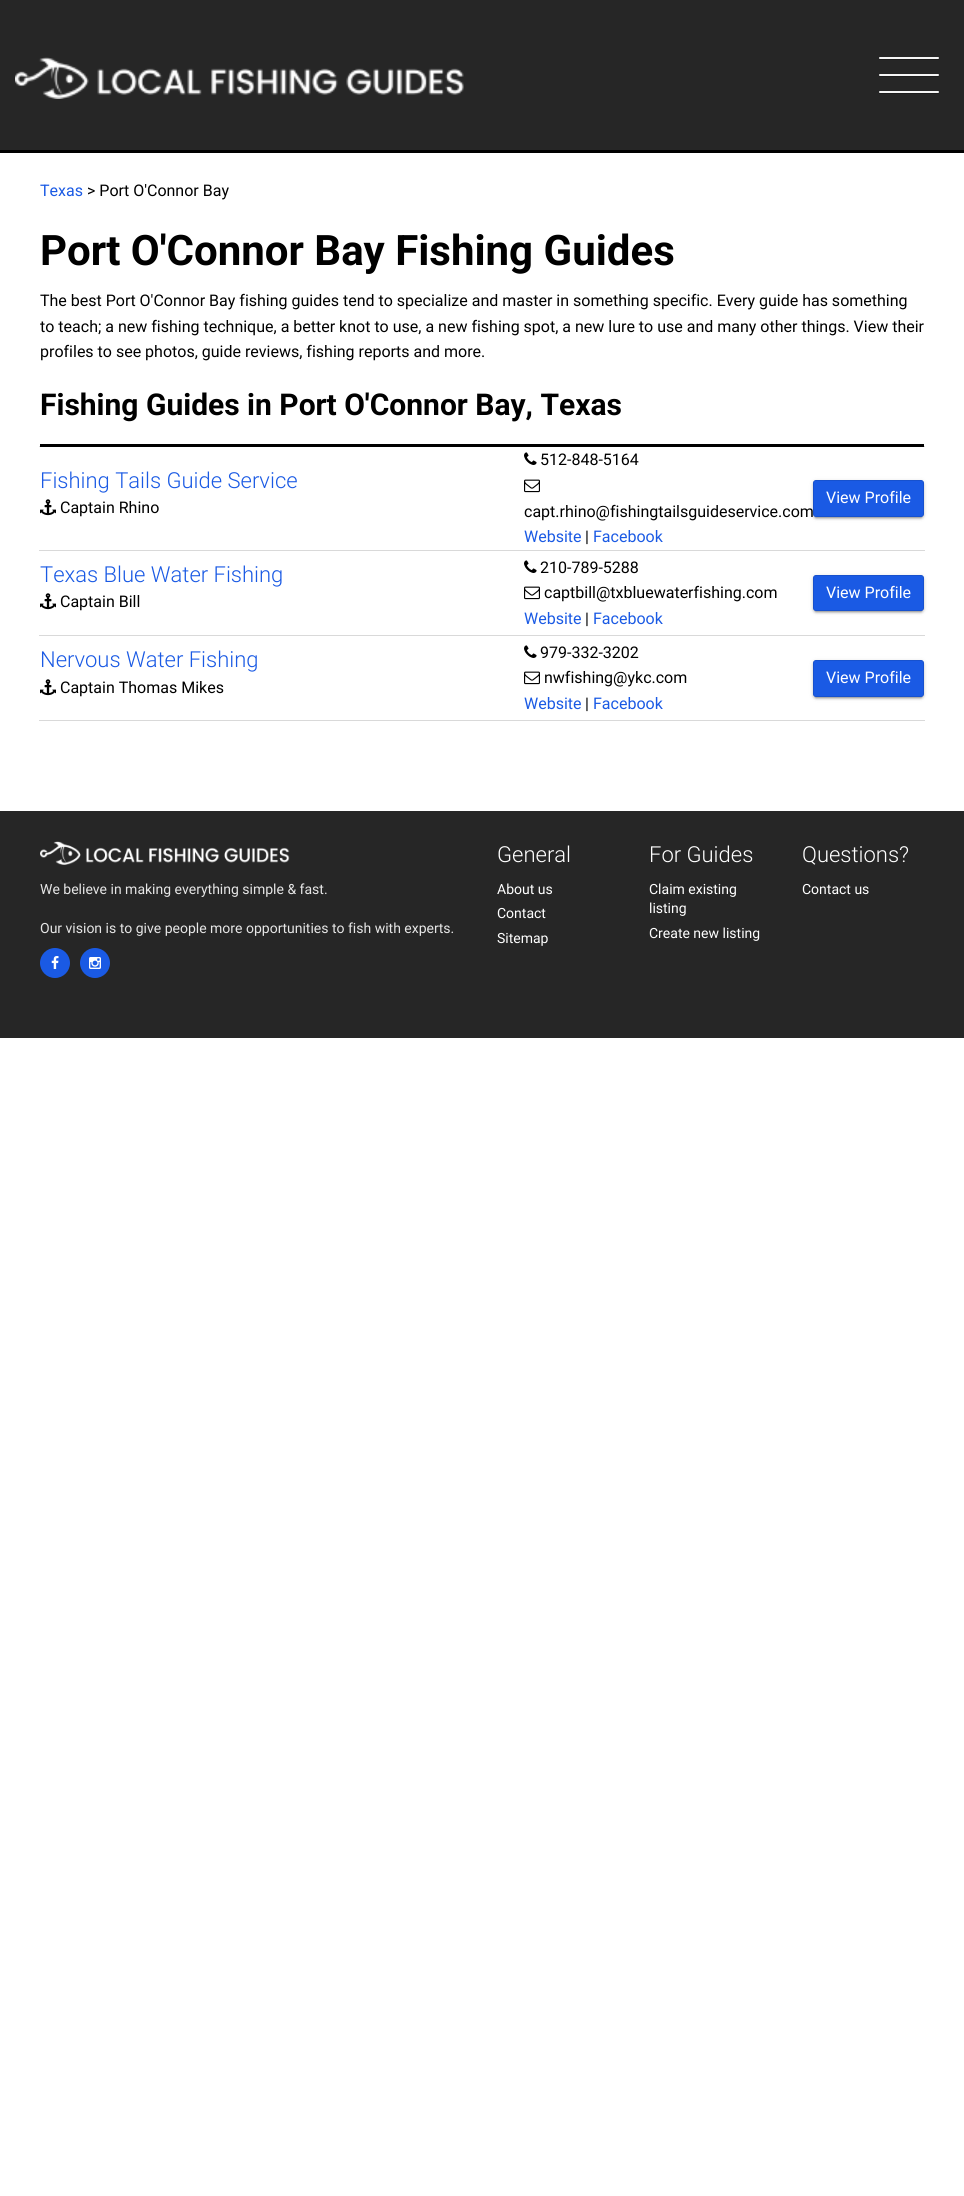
#include <cairo/cairo.h>
#include <math.h>
#include <stddef.h>

typedef struct { double x, y; const char *s; } line_t;
static cairo_t *cr;

static void rgb(unsigned color)
{
	cairo_set_source_rgb(cr, (color >> 16) / 255.0, (color >> 8 & 255) / 255.0, (color & 255) / 255.0);
}

static void rrect(double x, double y, double w, double h, double r)
{
	cairo_new_sub_path(cr);
	cairo_arc(cr, x + w - r, y + h - r, r, 0, M_PI / 2);
	cairo_arc(cr, x + r, y + h - r, r, M_PI / 2, M_PI);
	cairo_arc(cr, x + r, y + r, r, M_PI, 1.5 * M_PI);
	cairo_arc(cr, x + w - r, y + r, r, 1.5 * M_PI, 2 * M_PI);
	cairo_close_path(cr);
}

static void soft_shadow(double x, double y, double w, double h, double r, double blur, double alpha)
{
	cairo_push_group_with_content(cr, CAIRO_CONTENT_ALPHA);
	cairo_set_operator(cr, CAIRO_OPERATOR_SOURCE);
	for (int i = 15; i >= -15 && fmin(w, h) + blur * i / 3 > 0; i -= 2) {
		double e = blur * i / 6;
		cairo_set_source_rgba(cr, 0, 0, 0, alpha * erfc((i - 1) / 8.5) / 2);
		rrect(x - e, y - e, w + 2 * e, h + 2 * e, fmax(0, fmin(r + e + blur * .6, fmin(w, h) / 2 + e)));
		cairo_fill(cr);
	}
	cairo_pattern_t *soft = cairo_pop_group(cr);
	cairo_mask(cr, soft);
	cairo_pattern_destroy(soft);
}

static void image(const char *path, double x, double y, double w, double h)
{
	cairo_surface_t *image = cairo_image_surface_create_from_png(path);
	cairo_save(cr);
	cairo_set_source_surface(cr, image, x, y);
	cairo_rectangle(cr, x, y, w, h);
	cairo_fill(cr);
	cairo_restore(cr);
	cairo_surface_destroy(image);
}

int main(void) {
	cairo_surface_t *surface = cairo_image_surface_create(CAIRO_FORMAT_RGB24, 964, 2196);
	cr = cairo_create(surface);
	cairo_font_options_t *options = cairo_font_options_create();
	cairo_font_options_set_hint_metrics(options, CAIRO_HINT_METRICS_OFF);
	cairo_font_options_set_hint_style(options, CAIRO_HINT_STYLE_NONE);
	cairo_set_font_options(cr, options);
	cairo_set_miter_limit(cr, 4);
	rgb(0xffffff);
	cairo_paint(cr);
	rgb(0x000000);
	cairo_rectangle(cr, 0, 150, 964, 3);
	cairo_fill(cr);
	rgb(0x262626);
	cairo_rectangle(cr, 0, 0, 964, 150);
	cairo_fill(cr);
	image("img/1.png", 15, 57, 449, 42);
	rgb(0x1d1d1d);
	cairo_new_path(cr);
	cairo_move_to(cr, 879, 58);
	cairo_curve_to(cr, 879, 59, 879, 60, 880, 60);
	cairo_line_to(cr, 939, 60);
	cairo_line_to(cr, 939, 58);
	cairo_line_to(cr, 939, 59);
	cairo_line_to(cr, 880, 59);
	cairo_close_path(cr);
	cairo_fill(cr);
	rgb(0xf5f5f5);
	rrect(879, 57, 60, 2, 1);
	cairo_fill(cr);
	rgb(0x1d1d1d);
	cairo_new_path(cr);
	cairo_move_to(cr, 879, 75);
	cairo_curve_to(cr, 879, 76, 879, 77, 880, 77);
	cairo_line_to(cr, 939, 77);
	cairo_line_to(cr, 939, 75);
	cairo_line_to(cr, 939, 76);
	cairo_line_to(cr, 880, 76);
	cairo_close_path(cr);
	cairo_fill(cr);
	rgb(0xf5f5f5);
	rrect(879, 74, 60, 2, 1);
	cairo_fill(cr);
	rgb(0x1d1d1d);
	cairo_new_path(cr);
	cairo_move_to(cr, 879, 92);
	cairo_line_to(cr, 879, 94);
	cairo_line_to(cr, 938, 94);
	cairo_curve_to(cr, 939, 94, 939, 93, 939, 92);
	cairo_line_to(cr, 939, 93);
	cairo_line_to(cr, 880, 93);
	cairo_close_path(cr);
	cairo_fill(cr);
	rgb(0xf5f5f5);
	rrect(879, 91, 60, 2, 1);
	cairo_fill(cr);
	rgb(0x000000);
	cairo_rectangle(cr, 40, 444, 884, 3);
	cairo_fill(cr);
	rgb(0xd9d9d9);
	cairo_rectangle(cr, 39, 446, 1, 1);
	cairo_fill(cr);
	image("img/2.png", 40, 499, 16, 17);
	image("img/3.png", 524, 452, 13, 13);
	image("img/4.png", 524, 479, 16, 14);
	cairo_rectangle(cr, 924, 446, 1, 1);
	cairo_fill(cr);
	rgb(0x000000);
	soft_shadow(813, 481, 111, 37, 3, 2.5, 0.12);
	soft_shadow(815, 485, 107, 33, 1, 0.5, 0.2);
	soft_shadow(813, 482, 111, 37, 3, 1, 0.14);
	rgb(0x1a5ae4);
	rrect(813.5, 480.5, 110, 36, 2.5);
	cairo_fill_preserve(cr);
	rgb(0x1751cd);
	cairo_set_line_width(cr, 1);
	cairo_stroke(cr);
	image("img/2.png", 40, 593, 16, 17);
	image("img/3.png", 524, 560, 13, 13);
	image("img/4.png", 524, 586, 16, 14);
	rgb(0xd9d9d9);
	cairo_rectangle(cr, 39, 550, 886, 1);
	cairo_fill(cr);
	rgb(0x000000);
	soft_shadow(813, 576, 111, 36, 3, 2.5, 0.12);
	soft_shadow(815, 580, 107, 32, 1, 0.5, 0.2);
	soft_shadow(813, 577, 111, 36, 3, 1, 0.14);
	rgb(0x1a5ae4);
	rrect(813.5, 575.5, 110, 35, 2.5);
	cairo_fill_preserve(cr);
	rgb(0x1751cd);
	cairo_stroke(cr);
	image("img/2.png", 40, 679, 16, 17);
	image("img/3.png", 524, 645, 13, 13);
	image("img/4.png", 524, 671, 16, 14);
	rgb(0xd9d9d9);
	cairo_rectangle(cr, 39, 635, 886, 1);
	cairo_fill(cr);
	cairo_rectangle(cr, 39, 720, 886, 1);
	cairo_fill(cr);
	rgb(0x000000);
	soft_shadow(813, 661, 111, 37, 3, 2.5, 0.12);
	soft_shadow(815, 665, 107, 33, 1, 0.5, 0.2);
	soft_shadow(813, 662, 111, 37, 3, 1, 0.14);
	rgb(0x1a5ae4);
	rrect(813.5, 660.5, 110, 36, 2.5);
	cairo_fill_preserve(cr);
	rgb(0x1751cd);
	cairo_stroke(cr);
	rgb(0x262626);
	cairo_rectangle(cr, 0, 811, 964, 227);
	cairo_fill(cr);
	image("img/5.png", 40, 841, 250, 24);
	rgb(0x1a5ae4);
	cairo_arc(cr, 55, 963, 15, 0, 2 * M_PI);
	cairo_fill(cr);
	image("img/6.png", 51, 956, 8, 13);
	cairo_arc(cr, 95, 963, 15, 0, 2 * M_PI);
	cairo_fill(cr);
	image("img/7.png", 89, 957, 12, 12);
	cairo_select_font_face(cr, "Roboto", CAIRO_FONT_SLANT_NORMAL, CAIRO_FONT_WEIGHT_NORMAL);
	cairo_set_font_size(cr, 16);
	cairo_move_to(cr, 40, 196);
	cairo_show_text(cr, "Texas");
	rgb(0x000000);
	cairo_move_to(cr, 87, 196);
	cairo_show_text(cr, "> Port O'Connor Bay");
	cairo_select_font_face(cr, "Roboto", CAIRO_FONT_SLANT_NORMAL, CAIRO_FONT_WEIGHT_BOLD);
	cairo_set_font_size(cr, 42);
	cairo_move_to(cr, 40, 265);
	cairo_show_text(cr, "Port O'Connor Bay Fishing Guides");
	cairo_select_font_face(cr, "Roboto", CAIRO_FONT_SLANT_NORMAL, CAIRO_FONT_WEIGHT_NORMAL);
	cairo_set_font_size(cr, 16);
	{
		static const line_t items[] = {
			{40, 306, "The best Port O'Connor Bay fishing guides tend to specialize and master in something specific. Every guide has something"},
			{40, 332, "to teach; a new fishing technique, a better knot to use, a new fishing spot, a new lure to use and many other things. View their"},
			{40, 357, "profiles to see photos, guide reviews, fishing reports and more."},
		};
		for (size_t i = 0; i < sizeof items / sizeof *items; i++) {
			cairo_move_to(cr, items[i].x, items[i].y);
			cairo_show_text(cr, items[i].s);
		}
	}
	cairo_select_font_face(cr, "Roboto", CAIRO_FONT_SLANT_NORMAL, CAIRO_FONT_WEIGHT_BOLD);
	cairo_set_font_size(cr, 30);
	cairo_move_to(cr, 40, 415);
	cairo_show_text(cr, "Fishing Guides in Port O'Connor Bay, Texas");
	cairo_select_font_face(cr, "Roboto Light", CAIRO_FONT_SLANT_NORMAL, CAIRO_FONT_WEIGHT_NORMAL);
	cairo_set_font_size(cr, 22);
	rgb(0x1a5ae4);
	cairo_move_to(cr, 40, 488);
	cairo_show_text(cr, "Fishing Tails Guide Service");
	cairo_select_font_face(cr, "Roboto", CAIRO_FONT_SLANT_NORMAL, CAIRO_FONT_WEIGHT_NORMAL);
	cairo_set_font_size(cr, 16);
	rgb(0x000000);
	{
		static const line_t items[] = {
			{60, 513, "Captain Rhino"},
			{540, 465, "512-848-5164"},
			{524, 517, "capt.rhino@fishingtailsguideservice.com"},
		};
		for (size_t i = 0; i < sizeof items / sizeof *items; i++) {
			cairo_move_to(cr, items[i].x, items[i].y);
			cairo_show_text(cr, items[i].s);
		}
	}
	rgb(0x1a5ae4);
	cairo_move_to(cr, 524, 542);
	cairo_show_text(cr, "Website");
	rgb(0x000000);
	cairo_move_to(cr, 585, 542);
	cairo_show_text(cr, "|");
	rgb(0x1a5ae4);
	cairo_move_to(cr, 593, 542);
	cairo_show_text(cr, "Facebook");
	rgb(0xffffff);
	cairo_move_to(cr, 826, 503);
	cairo_show_text(cr, "View Profile");
	cairo_select_font_face(cr, "Roboto Light", CAIRO_FONT_SLANT_NORMAL, CAIRO_FONT_WEIGHT_NORMAL);
	cairo_set_font_size(cr, 22);
	rgb(0x1a5ae4);
	cairo_move_to(cr, 40, 582);
	cairo_show_text(cr, "Texas Blue Water Fishing");
	cairo_select_font_face(cr, "Roboto", CAIRO_FONT_SLANT_NORMAL, CAIRO_FONT_WEIGHT_NORMAL);
	cairo_set_font_size(cr, 16);
	rgb(0x000000);
	{
		static const line_t items[] = {
			{60, 607, "Captain Bill"},
			{540, 573, "210-789-5288"},
			{544, 598, "captbill@txbluewaterfishing.com"},
		};
		for (size_t i = 0; i < sizeof items / sizeof *items; i++) {
			cairo_move_to(cr, items[i].x, items[i].y);
			cairo_show_text(cr, items[i].s);
		}
	}
	rgb(0x1a5ae4);
	cairo_move_to(cr, 524, 624);
	cairo_show_text(cr, "Website");
	rgb(0x000000);
	cairo_move_to(cr, 585, 624);
	cairo_show_text(cr, "|");
	rgb(0x1a5ae4);
	cairo_move_to(cr, 593, 624);
	cairo_show_text(cr, "Facebook");
	rgb(0xffffff);
	cairo_move_to(cr, 826, 598);
	cairo_show_text(cr, "View Profile");
	cairo_select_font_face(cr, "Roboto Light", CAIRO_FONT_SLANT_NORMAL, CAIRO_FONT_WEIGHT_NORMAL);
	cairo_set_font_size(cr, 22);
	rgb(0x1a5ae4);
	cairo_move_to(cr, 40, 667);
	cairo_show_text(cr, "Nervous Water Fishing");
	cairo_select_font_face(cr, "Roboto", CAIRO_FONT_SLANT_NORMAL, CAIRO_FONT_WEIGHT_NORMAL);
	cairo_set_font_size(cr, 16);
	rgb(0x000000);
	{
		static const line_t items[] = {
			{60, 693, "Captain Thomas Mikes"},
			{540, 658, "979-332-3202"},
			{544, 683, "nwfishing@ykc.com"},
		};
		for (size_t i = 0; i < sizeof items / sizeof *items; i++) {
			cairo_move_to(cr, items[i].x, items[i].y);
			cairo_show_text(cr, items[i].s);
		}
	}
	rgb(0x1a5ae4);
	cairo_move_to(cr, 524, 709);
	cairo_show_text(cr, "Website");
	rgb(0x000000);
	cairo_move_to(cr, 585, 709);
	cairo_show_text(cr, "|");
	rgb(0x1a5ae4);
	cairo_move_to(cr, 593, 709);
	cairo_show_text(cr, "Facebook");
	rgb(0xffffff);
	cairo_move_to(cr, 826, 683);
	cairo_show_text(cr, "View Profile");
	cairo_select_font_face(cr, "Roboto Light", CAIRO_FONT_SLANT_NORMAL, CAIRO_FONT_WEIGHT_NORMAL);
	cairo_set_font_size(cr, 22);
	cairo_move_to(cr, 497, 862);
	cairo_show_text(cr, "General");
	cairo_select_font_face(cr, "Roboto", CAIRO_FONT_SLANT_NORMAL, CAIRO_FONT_WEIGHT_NORMAL);
	cairo_set_font_size(cr, 14);
	{
		static const line_t items[] = {
			{497, 894, "About us"},
			{497, 918, "Contact"},
			{497, 943, "Sitemap"},
		};
		for (size_t i = 0; i < sizeof items / sizeof *items; i++) {
			cairo_move_to(cr, items[i].x, items[i].y);
			cairo_show_text(cr, items[i].s);
		}
	}
	cairo_select_font_face(cr, "Roboto Light", CAIRO_FONT_SLANT_NORMAL, CAIRO_FONT_WEIGHT_NORMAL);
	cairo_set_font_size(cr, 22);
	cairo_move_to(cr, 649, 862);
	cairo_show_text(cr, "For Guides");
	cairo_select_font_face(cr, "Roboto", CAIRO_FONT_SLANT_NORMAL, CAIRO_FONT_WEIGHT_NORMAL);
	cairo_set_font_size(cr, 14);
	{
		static const line_t items[] = {
			{649, 894, "Claim existing"},
			{649, 913, "listing"},
			{649, 938, "Create new listing"},
		};
		for (size_t i = 0; i < sizeof items / sizeof *items; i++) {
			cairo_move_to(cr, items[i].x, items[i].y);
			cairo_show_text(cr, items[i].s);
		}
	}
	cairo_select_font_face(cr, "Roboto Light", CAIRO_FONT_SLANT_NORMAL, CAIRO_FONT_WEIGHT_NORMAL);
	cairo_set_font_size(cr, 22);
	cairo_move_to(cr, 802, 862);
	cairo_show_text(cr, "Questions?");
	cairo_select_font_face(cr, "Roboto", CAIRO_FONT_SLANT_NORMAL, CAIRO_FONT_WEIGHT_NORMAL);
	cairo_set_font_size(cr, 14);
	cairo_move_to(cr, 802, 894);
	cairo_show_text(cr, "Contact us");
	rgb(0xe6e6e6);
	cairo_move_to(cr, 40, 894);
	cairo_show_text(cr, "We believe in making everything simple & fast.");
	cairo_move_to(cr, 40, 933);
	cairo_show_text(cr, "Our vision is to give people more opportunities to fish with experts.");
	cairo_surface_write_to_png(surface, "page.png");
	cairo_font_options_destroy(options);
	cairo_destroy(cr);
	cairo_surface_destroy(surface);
	return 0;
}
